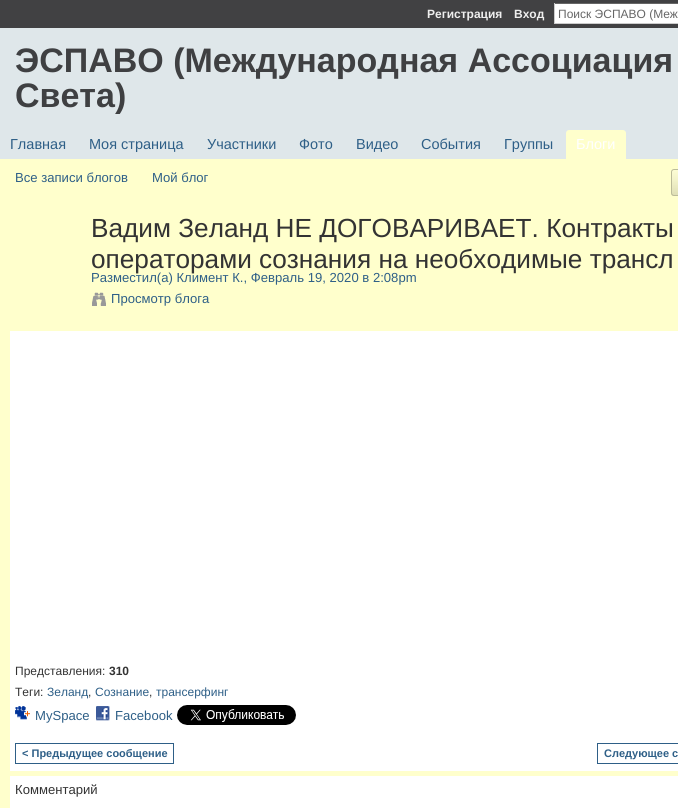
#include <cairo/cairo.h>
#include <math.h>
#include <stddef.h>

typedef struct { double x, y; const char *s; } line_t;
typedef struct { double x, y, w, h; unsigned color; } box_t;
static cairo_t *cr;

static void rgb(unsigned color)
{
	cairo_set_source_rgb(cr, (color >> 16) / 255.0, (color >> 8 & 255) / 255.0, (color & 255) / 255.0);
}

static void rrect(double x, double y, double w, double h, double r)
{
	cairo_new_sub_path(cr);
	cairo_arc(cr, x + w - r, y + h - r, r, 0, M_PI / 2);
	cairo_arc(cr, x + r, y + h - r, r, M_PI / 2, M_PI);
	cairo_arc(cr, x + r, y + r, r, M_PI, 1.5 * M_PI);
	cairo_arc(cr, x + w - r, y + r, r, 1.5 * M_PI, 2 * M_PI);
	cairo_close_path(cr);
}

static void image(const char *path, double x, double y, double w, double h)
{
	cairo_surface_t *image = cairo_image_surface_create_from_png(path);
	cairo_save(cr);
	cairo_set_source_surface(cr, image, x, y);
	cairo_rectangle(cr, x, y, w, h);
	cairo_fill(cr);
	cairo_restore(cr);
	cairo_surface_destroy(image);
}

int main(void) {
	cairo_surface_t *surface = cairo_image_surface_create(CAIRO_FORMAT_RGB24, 678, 808);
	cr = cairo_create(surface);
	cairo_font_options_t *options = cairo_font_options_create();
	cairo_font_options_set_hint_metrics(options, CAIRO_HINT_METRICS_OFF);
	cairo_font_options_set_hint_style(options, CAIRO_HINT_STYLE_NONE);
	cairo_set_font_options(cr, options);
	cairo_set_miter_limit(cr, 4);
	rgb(0xdfe7ea);
	cairo_paint(cr);
	{
		static const box_t items[] = {
			{0, 0, 678, 28, 0x414143},
			{555, 4, 123, 19, 0xffffff},
			{554, 3, 124, 1, 0x666666},
			{554, 23, 124, 1, 0xcccccc},
			{554, 3, 1, 21, 0xcccccc},
		};
		for (size_t i = 0; i < sizeof items / sizeof *items; i++) {
			rgb(items[i].color);
			cairo_rectangle(cr, items[i].x, items[i].y, items[i].w, items[i].h);
			cairo_fill(cr);
		}
	}
	rgb(0xffffcc);
	cairo_new_path(cr);
	cairo_move_to(cr, 569, 130);
	cairo_line_to(cr, 623, 130);
	cairo_curve_to(cr, 624.5, 130, 626, 131.5, 626, 133);
	cairo_line_to(cr, 626, 159);
	cairo_line_to(cr, 566, 159);
	cairo_line_to(cr, 566, 133);
	cairo_curve_to(cr, 566, 131.5, 567.5, 130, 569, 130);
	cairo_close_path(cr);
	cairo_fill(cr);
	cairo_rectangle(cr, 0, 159, 678, 649);
	cairo_fill(cr);
	image("img/1.png", 671, 170, 7, 26);
	rrect(671.5, 169.5, 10, 26, 2.5);
	rgb(0xbbbb99);
	cairo_set_line_width(cr, 1);
	cairo_stroke(cr);
	image("img/2.png", 92, 292, 14, 14);
	rgb(0xffffff);
	cairo_rectangle(cr, 10, 331, 668, 440);
	cairo_fill(cr);
	image("img/3.png", 15, 706, 15, 14);
	image("img/4.png", 96, 706, 14, 15);
	image("img/5.png", 177, 705, 119, 20);
	cairo_rectangle(cr, 15.5, 743.5, 158, 20);
	rgb(0x2e5f87);
	cairo_stroke(cr);
	cairo_rectangle(cr, 597.5, 743.5, 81, 20);
	cairo_stroke(cr);
	rgb(0xffffff);
	cairo_rectangle(cr, 10, 776, 668, 32);
	cairo_fill(cr);
	cairo_select_font_face(cr, "Liberation Sans", CAIRO_FONT_SLANT_NORMAL, CAIRO_FONT_WEIGHT_BOLD);
	cairo_set_font_size(cr, 12);
	rgb(0xeeeeee);
	cairo_move_to(cr, 427, 18);
	cairo_show_text(cr, "Регистрация");
	cairo_move_to(cr, 514, 18);
	cairo_show_text(cr, "Вход");
	cairo_select_font_face(cr, "Liberation Sans", CAIRO_FONT_SLANT_NORMAL, CAIRO_FONT_WEIGHT_NORMAL);
	rgb(0x666666);
	cairo_move_to(cr, 558, 18);
	cairo_show_text(cr, "Поиск ЭСПАВО (Меж");
	cairo_select_font_face(cr, "Liberation Sans", CAIRO_FONT_SLANT_NORMAL, CAIRO_FONT_WEIGHT_BOLD);
	cairo_set_font_size(cr, 34);
	rgb(0x3f4042);
	cairo_move_to(cr, 15, 72);
	cairo_show_text(cr, "ЭСПАВО (Международная Ассоциация");
	cairo_save(cr);
	cairo_rectangle(cr, 0, 28, 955, 86);
	cairo_clip(cr);
	cairo_move_to(cr, 15, 107);
	cairo_show_text(cr, "Света)");
	cairo_restore(cr);
	cairo_select_font_face(cr, "Liberation Sans", CAIRO_FONT_SLANT_NORMAL, CAIRO_FONT_WEIGHT_NORMAL);
	cairo_set_font_size(cr, 14.5);
	rgb(0x2e5f87);
	{
		static const line_t items[] = {
			{10, 149, "Главная"},
			{89, 149, "Моя страница"},
			{207, 149, "Участники"},
			{299, 149, "Фото"},
			{356, 149, "Видео"},
			{421, 149, "События"},
			{504, 149, "Группы"},
		};
		for (size_t i = 0; i < sizeof items / sizeof *items; i++) {
			cairo_move_to(cr, items[i].x, items[i].y);
			cairo_show_text(cr, items[i].s);
		}
	}
	rgb(0xffffff);
	cairo_move_to(cr, 576, 149);
	cairo_show_text(cr, "Блоги");
	cairo_set_font_size(cr, 13.1);
	rgb(0x2e5f87);
	cairo_move_to(cr, 15, 182);
	cairo_show_text(cr, "Все записи блогов");
	cairo_move_to(cr, 152, 182);
	cairo_show_text(cr, "Мой блог");
	cairo_set_font_size(cr, 26.2);
	rgb(0x333333);
	cairo_move_to(cr, 91, 237);
	cairo_show_text(cr, "Вадим Зеланд НЕ ДОГОВАРИВАЕТ. Контракты");
	cairo_move_to(cr, 91, 268);
	cairo_show_text(cr, "операторами сознания на необходимые трансл");
	cairo_set_font_size(cr, 13.1);
	rgb(0x2e5f87);
	cairo_move_to(cr, 91, 282);
	cairo_show_text(cr, "Разместил(а) Климент К., Февраль 19, 2020 в 2:08pm");
	cairo_move_to(cr, 111, 303);
	cairo_show_text(cr, "Просмотр блога");
	cairo_set_font_size(cr, 12);
	rgb(0x333333);
	cairo_move_to(cr, 15, 675);
	cairo_show_text(cr, "Представления:");
	cairo_select_font_face(cr, "Liberation Sans", CAIRO_FONT_SLANT_NORMAL, CAIRO_FONT_WEIGHT_BOLD);
	cairo_move_to(cr, 109, 675);
	cairo_show_text(cr, "310");
	cairo_select_font_face(cr, "Liberation Sans", CAIRO_FONT_SLANT_NORMAL, CAIRO_FONT_WEIGHT_NORMAL);
	cairo_move_to(cr, 15, 696);
	cairo_show_text(cr, "Теги:");
	rgb(0x2e5f87);
	cairo_move_to(cr, 47, 696);
	cairo_show_text(cr, "Зеланд");
	rgb(0x333333);
	cairo_move_to(cr, 88, 696);
	cairo_show_text(cr, ",");
	rgb(0x2e5f87);
	cairo_move_to(cr, 95, 696);
	cairo_show_text(cr, "Сознание");
	rgb(0x333333);
	cairo_move_to(cr, 149, 696);
	cairo_show_text(cr, ",");
	rgb(0x2e5f87);
	cairo_move_to(cr, 156, 696);
	cairo_show_text(cr, "трансерфинг");
	cairo_set_font_size(cr, 13.1);
	cairo_move_to(cr, 35, 720);
	cairo_show_text(cr, "MySpace");
	cairo_move_to(cr, 115, 720);
	cairo_show_text(cr, "Facebook");
	cairo_select_font_face(cr, "Liberation Sans", CAIRO_FONT_SLANT_NORMAL, CAIRO_FONT_WEIGHT_BOLD);
	cairo_set_font_size(cr, 11);
	cairo_move_to(cr, 22, 757);
	cairo_show_text(cr, "< Предыдущее сообщение");
	cairo_move_to(cr, 604, 757);
	cairo_show_text(cr, "Следующее с");
	cairo_select_font_face(cr, "Liberation Sans", CAIRO_FONT_SLANT_NORMAL, CAIRO_FONT_WEIGHT_NORMAL);
	cairo_set_font_size(cr, 13.1);
	rgb(0x333333);
	cairo_move_to(cr, 15, 794);
	cairo_show_text(cr, "Комментарий");
	cairo_surface_write_to_png(surface, "page.png");
	cairo_font_options_destroy(options);
	cairo_destroy(cr);
	cairo_surface_destroy(surface);
	return 0;
}
